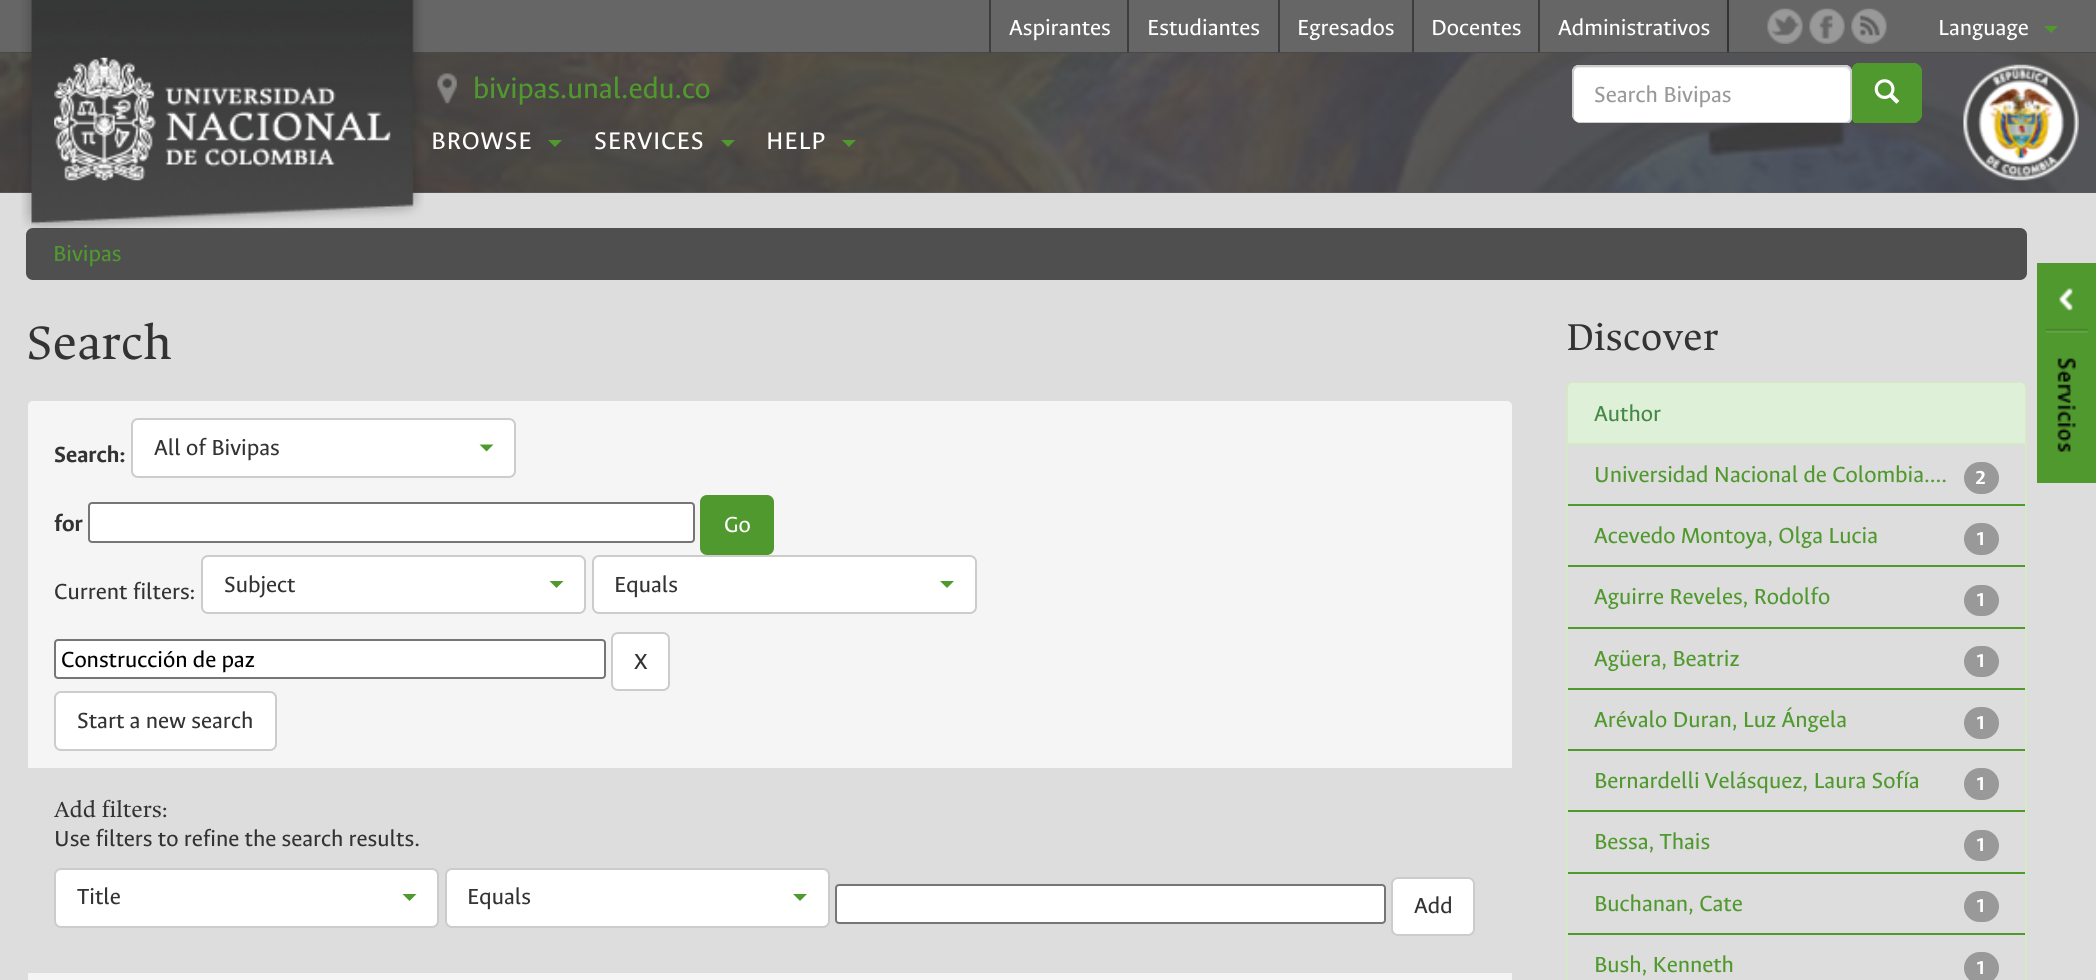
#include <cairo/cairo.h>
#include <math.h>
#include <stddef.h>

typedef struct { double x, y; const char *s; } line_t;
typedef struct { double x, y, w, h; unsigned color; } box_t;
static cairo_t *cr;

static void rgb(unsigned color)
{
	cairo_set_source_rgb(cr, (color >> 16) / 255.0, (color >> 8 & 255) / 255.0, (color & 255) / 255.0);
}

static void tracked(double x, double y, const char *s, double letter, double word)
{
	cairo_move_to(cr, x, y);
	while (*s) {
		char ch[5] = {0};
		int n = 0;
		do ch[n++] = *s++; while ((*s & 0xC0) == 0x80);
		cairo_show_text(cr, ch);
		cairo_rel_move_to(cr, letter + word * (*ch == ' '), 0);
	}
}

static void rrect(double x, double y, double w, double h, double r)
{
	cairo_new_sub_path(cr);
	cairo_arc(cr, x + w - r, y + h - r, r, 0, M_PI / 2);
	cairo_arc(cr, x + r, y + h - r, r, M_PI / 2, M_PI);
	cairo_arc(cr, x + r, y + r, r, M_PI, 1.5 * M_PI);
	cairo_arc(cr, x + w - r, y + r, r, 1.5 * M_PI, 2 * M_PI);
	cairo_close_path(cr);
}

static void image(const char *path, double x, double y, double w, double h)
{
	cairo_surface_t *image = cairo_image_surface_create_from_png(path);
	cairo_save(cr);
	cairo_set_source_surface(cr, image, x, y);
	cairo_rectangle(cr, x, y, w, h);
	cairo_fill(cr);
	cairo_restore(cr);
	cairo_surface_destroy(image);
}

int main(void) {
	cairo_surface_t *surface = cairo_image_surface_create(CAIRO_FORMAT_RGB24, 2096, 980);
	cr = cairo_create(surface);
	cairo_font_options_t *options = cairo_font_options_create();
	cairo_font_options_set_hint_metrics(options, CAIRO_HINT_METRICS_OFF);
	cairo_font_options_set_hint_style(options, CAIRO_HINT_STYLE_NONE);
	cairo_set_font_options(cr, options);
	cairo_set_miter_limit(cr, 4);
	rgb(0xdddddd);
	cairo_paint(cr);
	{
		static const box_t items[] = {
			{0, 192, 2096, 1, 0x5b5b5b},
			{0, 0, 2096, 52, 0x666666},
			{0, 52, 2096, 1, 0x494949},
		};
		for (size_t i = 0; i < sizeof items / sizeof *items; i++) {
			rgb(items[i].color);
			cairo_rectangle(cr, items[i].x, items[i].y, items[i].w, items[i].h);
			cairo_fill(cr);
		}
	}
	image("img/9.png", 0, 53, 2096, 140);
	rgb(0x4f4f4f);
	rrect(26, 228, 2001, 52, 7);
	cairo_fill(cr);
	image("img/1.png", 21, 0, 403, 229);
	image("img/2.png", 54, 57, 337, 124);
	{
		static const box_t items[] = {
			{989, 0, 2, 53, 0x3d3d3d},
			{989, 52, 2, 1, 0x434343},
			{1127, 0, 2, 53, 0x3d3d3d},
			{1127, 52, 2, 1, 0x434343},
			{1278, 0, 2, 53, 0x3d3d3d},
			{1278, 52, 2, 1, 0x434343},
			{1412, 0, 2, 53, 0x3d3d3d},
			{1412, 52, 2, 1, 0x434343},
			{1538, 0, 2, 53, 0x3d3d3d},
			{1538, 52, 2, 1, 0x434343},
			{1727, 0, 2, 53, 0x333333},
			{1727, 52, 2, 1, 0x414141},
		};
		for (size_t i = 0; i < sizeof items / sizeof *items; i++) {
			rgb(items[i].color);
			cairo_rectangle(cr, items[i].x, items[i].y, items[i].w, items[i].h);
			cairo_fill(cr);
		}
	}
	image("img/3.png", 1767, 8, 36, 36);
	image("img/4.png", 1809, 8, 36, 36);
	image("img/5.png", 1851, 8, 36, 36);
	rgb(0x50992e);
	cairo_new_path(cr);
	cairo_move_to(cr, 2044, 26);
	cairo_line_to(cr, 2058, 26);
	cairo_line_to(cr, 2051, 33);
	cairo_close_path(cr);
	cairo_fill(cr);
	image("img/6.png", 437, 73, 20, 31);
	cairo_new_path(cr);
	cairo_move_to(cr, 548, 140);
	cairo_line_to(cr, 562, 140);
	cairo_line_to(cr, 555, 147);
	cairo_close_path(cr);
	cairo_fill(cr);
	cairo_new_path(cr);
	cairo_move_to(cr, 721, 140);
	cairo_line_to(cr, 735, 140);
	cairo_line_to(cr, 728, 147);
	cairo_close_path(cr);
	cairo_fill(cr);
	cairo_new_path(cr);
	cairo_move_to(cr, 842, 140);
	cairo_line_to(cr, 856, 140);
	cairo_line_to(cr, 849, 147);
	cairo_close_path(cr);
	cairo_fill(cr);
	cairo_save(cr);
	rrect(1572, 63, 350, 60, 9);
	cairo_clip(cr);
	rgb(0xffffff);
	rrect(1572, 65, 280, 59, 7);
	cairo_fill(cr);
	cairo_restore(cr);
	rgb(0xececec);
	cairo_new_path(cr);
	cairo_move_to(cr, 1578, 68);
	cairo_curve_to(cr, 1576, 68, 1573, 71, 1573, 74);
	cairo_line_to(cr, 1573, 72);
	cairo_curve_to(cr, 1573, 69, 1575, 67, 1578, 67);
	cairo_line_to(cr, 1845, 67);
	cairo_curve_to(cr, 1848, 67, 1850, 69, 1850, 72);
	cairo_line_to(cr, 1850, 74);
	cairo_curve_to(cr, 1850, 71, 1847, 68, 1844, 68);
	cairo_close_path(cr);
	cairo_fill(cr);
	rgb(0xcccccc);
	cairo_set_fill_rule(cr, CAIRO_FILL_RULE_EVEN_ODD);
	cairo_new_path(cr);
	cairo_move_to(cr, 1579, 65);
	cairo_curve_to(cr, 1575, 65, 1572, 68, 1572, 72);
	cairo_line_to(cr, 1572, 114);
	cairo_curve_to(cr, 1572, 119, 1576, 123, 1581, 123);
	cairo_line_to(cr, 1849, 123);
	cairo_curve_to(cr, 1851, 122, 1852, 120, 1852, 117);
	cairo_line_to(cr, 1852, 72);
	cairo_curve_to(cr, 1852, 68, 1849, 65, 1845, 65);
	cairo_close_path(cr);
	cairo_move_to(cr, 1579, 67);
	cairo_curve_to(cr, 1576, 67, 1574, 69, 1574, 72);
	cairo_line_to(cr, 1574, 117);
	cairo_curve_to(cr, 1574, 120, 1576, 122, 1579, 122);
	cairo_line_to(cr, 1845, 122);
	cairo_curve_to(cr, 1848, 122, 1850, 120, 1850, 117);
	cairo_line_to(cr, 1850, 72);
	cairo_curve_to(cr, 1850, 69, 1848, 67, 1845, 67);
	cairo_close_path(cr);
	cairo_fill(cr);
	cairo_save(cr);
	cairo_set_fill_rule(cr, CAIRO_FILL_RULE_WINDING);
	rrect(1572, 63, 350, 60, 9);
	cairo_clip(cr);
	rgb(0x50992e);
	rrect(1852, 63, 70, 61, 7);
	cairo_fill(cr);
	cairo_restore(cr);
	rgb(0x50992e);
	cairo_new_path(cr);
	cairo_move_to(cr, 1859, 63);
	cairo_curve_to(cr, 1855, 63, 1852, 66, 1852, 70);
	cairo_line_to(cr, 1852, 117);
	cairo_curve_to(cr, 1852, 120, 1853, 122, 1855, 123);
	cairo_line_to(cr, 1913, 123);
	cairo_curve_to(cr, 1918, 123, 1922, 119, 1922, 114);
	cairo_line_to(cr, 1922, 72);
	cairo_curve_to(cr, 1922, 67, 1918, 63, 1913, 63);
	cairo_close_path(cr);
	cairo_move_to(cr, 1859, 65);
	cairo_curve_to(cr, 1856, 65, 1854, 67, 1854, 70);
	cairo_line_to(cr, 1854, 117);
	cairo_curve_to(cr, 1854, 120, 1856, 122, 1859, 122);
	cairo_line_to(cr, 1915, 122);
	cairo_curve_to(cr, 1918, 122, 1920, 120, 1920, 117);
	cairo_line_to(cr, 1920, 70);
	cairo_curve_to(cr, 1920, 67, 1918, 65, 1915, 65);
	cairo_close_path(cr);
	cairo_fill(cr);
	image("img/7.png", 1874, 79, 26, 25);
	image("img/8.png", 1963, 64, 116, 117);
	rgb(0xf5f5f5);
	cairo_new_path(cr);
	cairo_move_to(cr, 33, 401);
	cairo_line_to(cr, 1507, 401);
	cairo_curve_to(cr, 1510, 401, 1512, 403, 1512, 406);
	cairo_line_to(cr, 1512, 770);
	cairo_line_to(cr, 28, 770);
	cairo_line_to(cr, 28, 406);
	cairo_curve_to(cr, 28, 403, 30, 401, 33, 401);
	cairo_close_path(cr);
	cairo_fill(cr);
	rgb(0xdddddd);
	cairo_rectangle(cr, 28, 768, 1484, 2);
	cairo_fill(cr);
	rgb(0xffffff);
	rrect(132, 419, 383, 58, 6);
	cairo_fill_preserve(cr);
	rgb(0xcccccc);
	cairo_stroke(cr);
	rgb(0x50992e);
	cairo_set_fill_rule(cr, CAIRO_FILL_RULE_WINDING);
	cairo_new_path(cr);
	cairo_move_to(cr, 479.5, 444.5);
	cairo_line_to(cr, 493.5, 444.5);
	cairo_line_to(cr, 486.5, 451.5);
	cairo_close_path(cr);
	cairo_fill(cr);
	rgb(0xffffff);
	rrect(89, 503, 605, 39, 3);
	cairo_fill_preserve(cr);
	rgb(0x767676);
	cairo_stroke(cr);
	rgb(0x50992e);
	rrect(701, 496, 72, 58, 6);
	cairo_fill_preserve(cr);
	cairo_stroke(cr);
	rgb(0xffffff);
	rrect(202, 556, 383, 57, 6);
	cairo_fill_preserve(cr);
	rgb(0xcccccc);
	cairo_stroke(cr);
	rgb(0x50992e);
	cairo_new_path(cr);
	cairo_move_to(cr, 549.5, 581);
	cairo_line_to(cr, 563.5, 581);
	cairo_line_to(cr, 556.5, 588);
	cairo_close_path(cr);
	cairo_fill(cr);
	rgb(0xffffff);
	rrect(593, 556, 383, 57, 6);
	cairo_fill_preserve(cr);
	rgb(0xcccccc);
	cairo_stroke(cr);
	rgb(0x50992e);
	cairo_new_path(cr);
	cairo_move_to(cr, 940, 581);
	cairo_line_to(cr, 954, 581);
	cairo_line_to(cr, 947, 588);
	cairo_close_path(cr);
	cairo_fill(cr);
	rgb(0xffffff);
	rrect(55, 640, 550, 38, 3);
	cairo_fill_preserve(cr);
	rgb(0x767676);
	cairo_stroke(cr);
	rgb(0xffffff);
	rrect(612, 633, 57, 57, 6);
	cairo_fill_preserve(cr);
	rgb(0xcccccc);
	cairo_stroke(cr);
	rgb(0xffffff);
	rrect(55, 692, 221, 58, 6);
	cairo_fill_preserve(cr);
	rgb(0xcccccc);
	cairo_stroke(cr);
	rgb(0xffffff);
	rrect(55, 869, 383, 58, 6);
	cairo_fill_preserve(cr);
	rgb(0xcccccc);
	cairo_stroke(cr);
	rgb(0x50992e);
	cairo_new_path(cr);
	cairo_move_to(cr, 402.5, 894);
	cairo_line_to(cr, 416.5, 894);
	cairo_line_to(cr, 409.5, 901);
	cairo_close_path(cr);
	cairo_fill(cr);
	rgb(0xffffff);
	rrect(446, 869, 383, 58, 6);
	cairo_fill_preserve(cr);
	rgb(0xcccccc);
	cairo_stroke(cr);
	rgb(0x50992e);
	cairo_new_path(cr);
	cairo_move_to(cr, 793, 894);
	cairo_line_to(cr, 807, 894);
	cairo_line_to(cr, 800, 901);
	cairo_close_path(cr);
	cairo_fill(cr);
	rgb(0xffffff);
	rrect(836, 885, 549, 38, 3);
	cairo_fill_preserve(cr);
	rgb(0x767676);
	cairo_stroke(cr);
	rgb(0xffffff);
	rrect(1392, 878, 82, 57, 6);
	cairo_fill_preserve(cr);
	rgb(0xcccccc);
	cairo_stroke(cr);
	rgb(0xf5f5f5);
	cairo_rectangle(cr, 28, 973, 1484, 7);
	cairo_fill(cr);
	rrect(1567, 383, 459, 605, 6);
	rgb(0xd6e9c6);
	cairo_stroke(cr);
	rgb(0xdff0d8);
	cairo_new_path(cr);
	cairo_move_to(cr, 1573, 383);
	cairo_line_to(cr, 2020, 383);
	cairo_curve_to(cr, 2023, 383, 2025, 385, 2025, 388);
	cairo_line_to(cr, 2025, 445);
	cairo_line_to(cr, 1568, 445);
	cairo_line_to(cr, 1568, 388);
	cairo_curve_to(cr, 1568, 385, 1570, 383, 1573, 383);
	cairo_close_path(cr);
	cairo_fill(cr);
	rgb(0xd6e9c6);
	cairo_rectangle(cr, 1568, 443, 457, 2);
	cairo_fill(cr);
	rgb(0x50992e);
	cairo_rectangle(cr, 1568, 504, 457, 2);
	cairo_fill(cr);
	rgb(0x999999);
	rrect(1964, 462, 35, 32, 16);
	cairo_fill(cr);
	rgb(0x50992e);
	cairo_rectangle(cr, 1568, 565, 457, 2);
	cairo_fill(cr);
	rgb(0x999999);
	rrect(1964, 523, 35, 32, 16);
	cairo_fill(cr);
	rrect(1964, 585, 35, 31, 15.5);
	cairo_fill(cr);
	rgb(0x50992e);
	cairo_rectangle(cr, 1568, 627, 457, 2);
	cairo_fill(cr);
	cairo_rectangle(cr, 1568, 688, 457, 2);
	cairo_fill(cr);
	rgb(0x999999);
	rrect(1964, 646, 35, 31, 15.5);
	cairo_fill(cr);
	rgb(0x50992e);
	cairo_rectangle(cr, 1568, 749, 457, 2);
	cairo_fill(cr);
	rgb(0x999999);
	rrect(1964, 707, 35, 32, 16);
	cairo_fill(cr);
	rgb(0x50992e);
	cairo_rectangle(cr, 1568, 810, 457, 2);
	cairo_fill(cr);
	rgb(0x999999);
	rrect(1964, 768, 35, 32, 16);
	cairo_fill(cr);
	rrect(1964, 830, 35, 31, 15.5);
	cairo_fill(cr);
	rgb(0x50992e);
	cairo_rectangle(cr, 1568, 872, 457, 2);
	cairo_fill(cr);
	cairo_rectangle(cr, 1568, 933, 457, 2);
	cairo_fill(cr);
	rgb(0x999999);
	rrect(1964, 891, 35, 31, 15.5);
	cairo_fill(cr);
	rrect(1964, 952, 35, 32, 16);
	cairo_fill(cr);
	rgb(0x50992e);
	cairo_rectangle(cr, 2037, 263, 59, 220);
	cairo_fill(cr);
	image("img/10.png", 2045, 288, 43, 164);
	cairo_select_font_face(cr, "Ancizar Sans", CAIRO_FONT_SLANT_NORMAL, CAIRO_FONT_WEIGHT_NORMAL);
	cairo_set_font_size(cr, 24.5);
	rgb(0xffffff);
	{
		static const line_t items[] = {
			{1009, 35, "Aspirantes"},
			{1147, 35, "Estudiantes"},
			{1297, 35, "Egresados"},
			{1431, 35, "Docentes"},
			{1558, 35, "Administrativos"},
			{1938, 35, "Language"},
		};
		for (size_t i = 0; i < sizeof items / sizeof *items; i++) {
			cairo_move_to(cr, items[i].x, items[i].y);
			cairo_show_text(cr, items[i].s);
		}
	}
	cairo_set_font_size(cr, 31.5);
	rgb(0x50992e);
	cairo_move_to(cr, 473, 98);
	cairo_show_text(cr, "bivipas.unal.edu.co");
	cairo_set_font_size(cr, 27);
	rgb(0xffffff);
	{
		static const line_t items[] = {
			{431, 149, "BROWSE"},
			{594, 149, "SERVICES"},
			{766, 149, "HELP"},
		};
		for (size_t i = 0; i < sizeof items / sizeof *items; i++) {
			tracked(items[i].x, items[i].y, items[i].s, 0.75, 0);
		}
	}
	cairo_set_font_size(cr, 24.5);
	rgb(0x999999);
	cairo_move_to(cr, 1594, 102);
	cairo_show_text(cr, "Search Bivipas");
	rgb(0x50992e);
	cairo_move_to(cr, 53, 261);
	cairo_show_text(cr, "Bivipas");
	cairo_select_font_face(cr, "Ancizar Serif", CAIRO_FONT_SLANT_NORMAL, CAIRO_FONT_WEIGHT_NORMAL);
	cairo_set_font_size(cr, 52.5);
	rgb(0x333333);
	cairo_move_to(cr, 26, 359);
	cairo_show_text(cr, "Search");
	cairo_select_font_face(cr, "Ancizar Sans", CAIRO_FONT_SLANT_NORMAL, CAIRO_FONT_WEIGHT_BOLD);
	cairo_set_font_size(cr, 24.5);
	cairo_move_to(cr, 54, 462);
	cairo_show_text(cr, "Search:");
	cairo_select_font_face(cr, "Ancizar Sans", CAIRO_FONT_SLANT_NORMAL, CAIRO_FONT_WEIGHT_NORMAL);
	cairo_move_to(cr, 154, 455);
	cairo_show_text(cr, "All of Bivipas");
	cairo_select_font_face(cr, "Ancizar Sans", CAIRO_FONT_SLANT_NORMAL, CAIRO_FONT_WEIGHT_BOLD);
	cairo_move_to(cr, 54, 531);
	cairo_show_text(cr, "for");
	cairo_select_font_face(cr, "Ancizar Sans", CAIRO_FONT_SLANT_NORMAL, CAIRO_FONT_WEIGHT_NORMAL);
	rgb(0xffffff);
	cairo_move_to(cr, 724, 532);
	cairo_show_text(cr, "Go");
	rgb(0x333333);
	{
		static const line_t items[] = {
			{54, 599, "Current filters:"},
			{224, 592, "Subject"},
			{614, 592, "Equals"},
		};
		for (size_t i = 0; i < sizeof items / sizeof *items; i++) {
			cairo_move_to(cr, items[i].x, items[i].y);
			cairo_show_text(cr, items[i].s);
		}
	}
	rgb(0x000000);
	cairo_move_to(cr, 61, 667);
	cairo_show_text(cr, "Construcción de paz");
	rgb(0x333333);
	cairo_move_to(cr, 634, 669);
	cairo_show_text(cr, "X");
	cairo_move_to(cr, 77, 728);
	cairo_show_text(cr, "Start a new search");
	cairo_select_font_face(cr, "Ancizar Serif", CAIRO_FONT_SLANT_NORMAL, CAIRO_FONT_WEIGHT_NORMAL);
	cairo_move_to(cr, 54, 817);
	cairo_show_text(cr, "Add filters:");
	cairo_select_font_face(cr, "Ancizar Sans", CAIRO_FONT_SLANT_NORMAL, CAIRO_FONT_WEIGHT_NORMAL);
	{
		static const line_t items[] = {
			{54, 846, "Use filters to refine the search results."},
			{77, 904, "Title"},
			{467, 904, "Equals"},
			{1414, 913, "Add"},
		};
		for (size_t i = 0; i < sizeof items / sizeof *items; i++) {
			cairo_move_to(cr, items[i].x, items[i].y);
			cairo_show_text(cr, items[i].s);
		}
	}
	cairo_select_font_face(cr, "Ancizar Serif", CAIRO_FONT_SLANT_NORMAL, CAIRO_FONT_WEIGHT_NORMAL);
	cairo_set_font_size(cr, 42);
	cairo_move_to(cr, 1566, 350);
	cairo_show_text(cr, "Discover");
	cairo_select_font_face(cr, "Ancizar Sans", CAIRO_FONT_SLANT_NORMAL, CAIRO_FONT_WEIGHT_NORMAL);
	cairo_set_font_size(cr, 24.5);
	rgb(0x468847);
	cairo_move_to(cr, 1594, 421);
	cairo_show_text(cr, "Author");
	rgb(0x50992e);
	cairo_move_to(cr, 1594, 482);
	cairo_show_text(cr, "Universidad Nacional de Colombia....");
	cairo_select_font_face(cr, "Ancizar Sans", CAIRO_FONT_SLANT_NORMAL, CAIRO_FONT_WEIGHT_BOLD);
	cairo_set_font_size(cr, 21);
	rgb(0xffffff);
	cairo_move_to(cr, 1975, 484);
	cairo_show_text(cr, "2");
	cairo_select_font_face(cr, "Ancizar Sans", CAIRO_FONT_SLANT_NORMAL, CAIRO_FONT_WEIGHT_NORMAL);
	cairo_set_font_size(cr, 24.5);
	rgb(0x50992e);
	cairo_move_to(cr, 1594, 543);
	cairo_show_text(cr, "Acevedo Montoya, Olga Lucia");
	cairo_select_font_face(cr, "Ancizar Sans", CAIRO_FONT_SLANT_NORMAL, CAIRO_FONT_WEIGHT_BOLD);
	cairo_set_font_size(cr, 21);
	rgb(0xffffff);
	cairo_move_to(cr, 1975, 545);
	cairo_show_text(cr, "1");
	cairo_select_font_face(cr, "Ancizar Sans", CAIRO_FONT_SLANT_NORMAL, CAIRO_FONT_WEIGHT_NORMAL);
	cairo_set_font_size(cr, 24.5);
	rgb(0x50992e);
	cairo_move_to(cr, 1594, 604);
	cairo_show_text(cr, "Aguirre Reveles, Rodolfo");
	cairo_select_font_face(cr, "Ancizar Sans", CAIRO_FONT_SLANT_NORMAL, CAIRO_FONT_WEIGHT_BOLD);
	cairo_set_font_size(cr, 21);
	rgb(0xffffff);
	cairo_move_to(cr, 1975, 606);
	cairo_show_text(cr, "1");
	cairo_select_font_face(cr, "Ancizar Sans", CAIRO_FONT_SLANT_NORMAL, CAIRO_FONT_WEIGHT_NORMAL);
	cairo_set_font_size(cr, 24.5);
	rgb(0x50992e);
	cairo_move_to(cr, 1594, 666);
	cairo_show_text(cr, "Agüera, Beatriz");
	cairo_select_font_face(cr, "Ancizar Sans", CAIRO_FONT_SLANT_NORMAL, CAIRO_FONT_WEIGHT_BOLD);
	cairo_set_font_size(cr, 21);
	rgb(0xffffff);
	cairo_move_to(cr, 1975, 667);
	cairo_show_text(cr, "1");
	cairo_select_font_face(cr, "Ancizar Sans", CAIRO_FONT_SLANT_NORMAL, CAIRO_FONT_WEIGHT_NORMAL);
	cairo_set_font_size(cr, 24.5);
	rgb(0x50992e);
	cairo_move_to(cr, 1594, 727);
	cairo_show_text(cr, "Arévalo Duran, Luz Ángela");
	cairo_select_font_face(cr, "Ancizar Sans", CAIRO_FONT_SLANT_NORMAL, CAIRO_FONT_WEIGHT_BOLD);
	cairo_set_font_size(cr, 21);
	rgb(0xffffff);
	cairo_move_to(cr, 1975, 729);
	cairo_show_text(cr, "1");
	cairo_select_font_face(cr, "Ancizar Sans", CAIRO_FONT_SLANT_NORMAL, CAIRO_FONT_WEIGHT_NORMAL);
	cairo_set_font_size(cr, 24.5);
	rgb(0x50992e);
	cairo_move_to(cr, 1594, 788);
	cairo_show_text(cr, "Bernardelli Velásquez, Laura Sofía");
	cairo_select_font_face(cr, "Ancizar Sans", CAIRO_FONT_SLANT_NORMAL, CAIRO_FONT_WEIGHT_BOLD);
	cairo_set_font_size(cr, 21);
	rgb(0xffffff);
	cairo_move_to(cr, 1975, 790);
	cairo_show_text(cr, "1");
	cairo_select_font_face(cr, "Ancizar Sans", CAIRO_FONT_SLANT_NORMAL, CAIRO_FONT_WEIGHT_NORMAL);
	cairo_set_font_size(cr, 24.5);
	rgb(0x50992e);
	cairo_move_to(cr, 1594, 849);
	cairo_show_text(cr, "Bessa, Thais");
	cairo_select_font_face(cr, "Ancizar Sans", CAIRO_FONT_SLANT_NORMAL, CAIRO_FONT_WEIGHT_BOLD);
	cairo_set_font_size(cr, 21);
	rgb(0xffffff);
	cairo_move_to(cr, 1975, 851);
	cairo_show_text(cr, "1");
	cairo_select_font_face(cr, "Ancizar Sans", CAIRO_FONT_SLANT_NORMAL, CAIRO_FONT_WEIGHT_NORMAL);
	cairo_set_font_size(cr, 24.5);
	rgb(0x50992e);
	cairo_move_to(cr, 1594, 911);
	cairo_show_text(cr, "Buchanan, Cate");
	cairo_select_font_face(cr, "Ancizar Sans", CAIRO_FONT_SLANT_NORMAL, CAIRO_FONT_WEIGHT_BOLD);
	cairo_set_font_size(cr, 21);
	rgb(0xffffff);
	cairo_move_to(cr, 1975, 912);
	cairo_show_text(cr, "1");
	cairo_select_font_face(cr, "Ancizar Sans", CAIRO_FONT_SLANT_NORMAL, CAIRO_FONT_WEIGHT_NORMAL);
	cairo_set_font_size(cr, 24.5);
	rgb(0x50992e);
	cairo_move_to(cr, 1594, 972);
	cairo_show_text(cr, "Bush, Kenneth");
	cairo_select_font_face(cr, "Ancizar Sans", CAIRO_FONT_SLANT_NORMAL, CAIRO_FONT_WEIGHT_BOLD);
	cairo_set_font_size(cr, 21);
	rgb(0xffffff);
	cairo_move_to(cr, 1975, 974);
	cairo_show_text(cr, "1");
	cairo_surface_write_to_png(surface, "page.png");
	cairo_font_options_destroy(options);
	cairo_destroy(cr);
	cairo_surface_destroy(surface);
	return 0;
}
